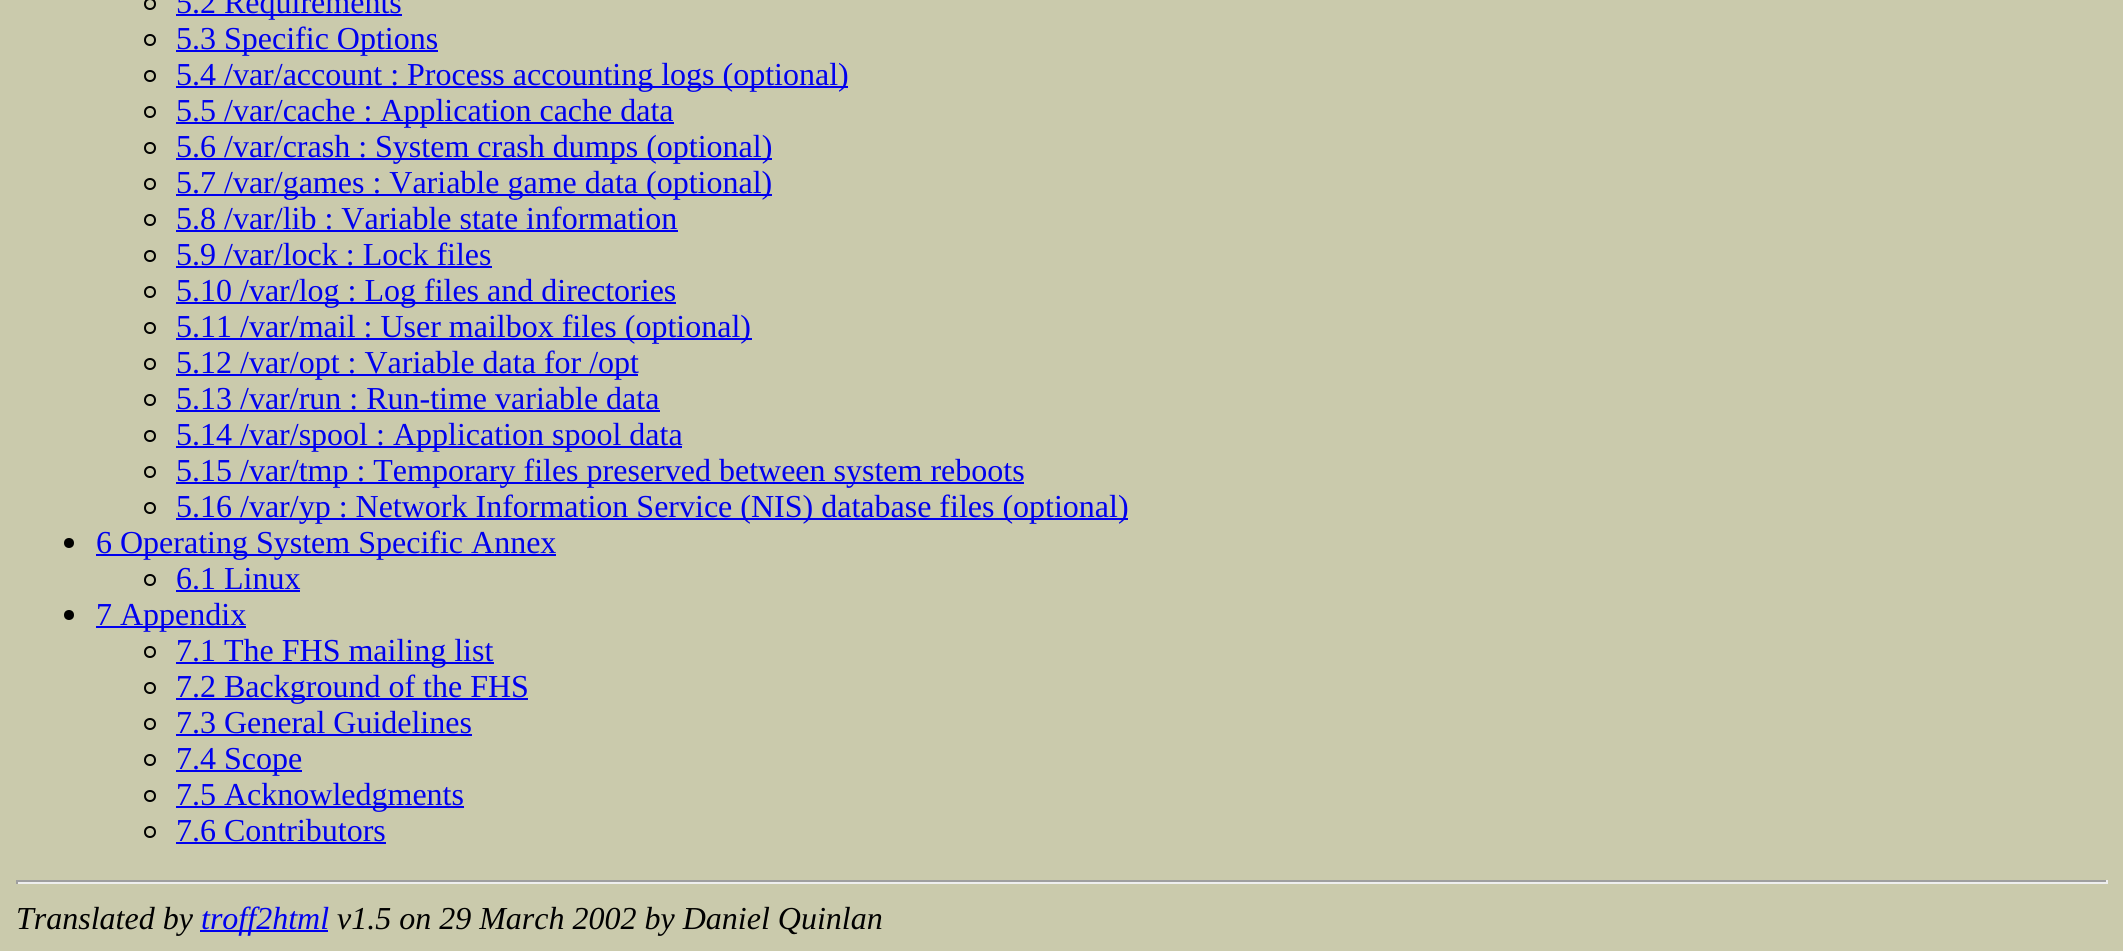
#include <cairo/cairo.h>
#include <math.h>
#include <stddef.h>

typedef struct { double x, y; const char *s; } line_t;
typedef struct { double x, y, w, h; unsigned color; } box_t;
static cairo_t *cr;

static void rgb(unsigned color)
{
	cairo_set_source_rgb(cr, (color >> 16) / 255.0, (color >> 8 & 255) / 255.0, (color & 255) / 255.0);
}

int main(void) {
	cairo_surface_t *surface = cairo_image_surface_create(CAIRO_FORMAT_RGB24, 2123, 951);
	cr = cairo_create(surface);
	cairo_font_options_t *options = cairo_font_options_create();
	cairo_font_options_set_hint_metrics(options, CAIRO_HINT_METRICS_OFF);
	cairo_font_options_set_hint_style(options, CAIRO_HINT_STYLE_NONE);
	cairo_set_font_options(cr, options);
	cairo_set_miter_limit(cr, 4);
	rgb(0xcacaac);
	cairo_paint(cr);
	cairo_arc(cr, 150, 4, 5, 0, 2 * M_PI);
	rgb(0x000000);
	cairo_stroke(cr);
	rgb(0x0000ee);
	cairo_rectangle(cr, 176, 14, 226, 2);
	cairo_fill(cr);
	cairo_arc(cr, 150, 40, 5, 0, 2 * M_PI);
	rgb(0x000000);
	cairo_stroke(cr);
	rgb(0x0000ee);
	cairo_rectangle(cr, 176, 50, 262, 2);
	cairo_fill(cr);
	cairo_arc(cr, 150, 76, 5, 0, 2 * M_PI);
	rgb(0x000000);
	cairo_stroke(cr);
	rgb(0x0000ee);
	cairo_rectangle(cr, 176, 86, 672, 2);
	cairo_fill(cr);
	cairo_arc(cr, 150, 112, 5, 0, 2 * M_PI);
	rgb(0x000000);
	cairo_stroke(cr);
	rgb(0x0000ee);
	cairo_rectangle(cr, 176, 122, 498, 2);
	cairo_fill(cr);
	cairo_arc(cr, 150, 148, 5, 0, 2 * M_PI);
	rgb(0x000000);
	cairo_stroke(cr);
	rgb(0x0000ee);
	cairo_rectangle(cr, 176, 158, 596, 2);
	cairo_fill(cr);
	cairo_arc(cr, 150, 184, 5, 0, 2 * M_PI);
	rgb(0x000000);
	cairo_stroke(cr);
	rgb(0x0000ee);
	cairo_rectangle(cr, 176, 194, 596, 2);
	cairo_fill(cr);
	cairo_arc(cr, 150, 220, 5, 0, 2 * M_PI);
	rgb(0x000000);
	cairo_stroke(cr);
	rgb(0x0000ee);
	cairo_rectangle(cr, 176, 230, 502, 2);
	cairo_fill(cr);
	cairo_arc(cr, 150, 256, 5, 0, 2 * M_PI);
	rgb(0x000000);
	cairo_stroke(cr);
	rgb(0x0000ee);
	cairo_rectangle(cr, 176, 266, 316, 2);
	cairo_fill(cr);
	cairo_arc(cr, 150, 292, 5, 0, 2 * M_PI);
	rgb(0x000000);
	cairo_stroke(cr);
	rgb(0x0000ee);
	cairo_rectangle(cr, 176, 302, 500, 2);
	cairo_fill(cr);
	cairo_arc(cr, 150, 328, 5, 0, 2 * M_PI);
	rgb(0x000000);
	cairo_stroke(cr);
	rgb(0x0000ee);
	cairo_rectangle(cr, 176, 338, 576, 2);
	cairo_fill(cr);
	cairo_arc(cr, 150, 364, 5, 0, 2 * M_PI);
	rgb(0x000000);
	cairo_stroke(cr);
	rgb(0x0000ee);
	cairo_rectangle(cr, 176, 374, 462, 2);
	cairo_fill(cr);
	cairo_arc(cr, 150, 400, 5, 0, 2 * M_PI);
	rgb(0x000000);
	cairo_stroke(cr);
	rgb(0x0000ee);
	cairo_rectangle(cr, 176, 410, 484, 2);
	cairo_fill(cr);
	cairo_arc(cr, 150, 436, 5, 0, 2 * M_PI);
	rgb(0x000000);
	cairo_stroke(cr);
	rgb(0x0000ee);
	cairo_rectangle(cr, 176, 446, 506, 2);
	cairo_fill(cr);
	cairo_arc(cr, 150, 472, 5, 0, 2 * M_PI);
	rgb(0x000000);
	cairo_stroke(cr);
	rgb(0x0000ee);
	cairo_rectangle(cr, 176, 482, 848, 2);
	cairo_fill(cr);
	cairo_arc(cr, 150, 508, 5, 0, 2 * M_PI);
	rgb(0x000000);
	cairo_stroke(cr);
	rgb(0x0000ee);
	cairo_rectangle(cr, 176, 518, 952, 2);
	cairo_fill(cr);
	rgb(0x000000);
	cairo_arc(cr, 69, 543, 5, 0, 2 * M_PI);
	cairo_fill(cr);
	rgb(0x0000ee);
	cairo_rectangle(cr, 96, 554, 460, 2);
	cairo_fill(cr);
	cairo_arc(cr, 150, 580, 5, 0, 2 * M_PI);
	rgb(0x000000);
	cairo_stroke(cr);
	rgb(0x0000ee);
	cairo_rectangle(cr, 176, 590, 124, 2);
	cairo_fill(cr);
	rgb(0x000000);
	cairo_arc(cr, 69, 615, 5, 0, 2 * M_PI);
	cairo_fill(cr);
	rgb(0x0000ee);
	cairo_rectangle(cr, 96, 626, 150, 2);
	cairo_fill(cr);
	cairo_arc(cr, 150, 652, 5, 0, 2 * M_PI);
	rgb(0x000000);
	cairo_stroke(cr);
	rgb(0x0000ee);
	cairo_rectangle(cr, 176, 662, 318, 2);
	cairo_fill(cr);
	cairo_arc(cr, 150, 688, 5, 0, 2 * M_PI);
	rgb(0x000000);
	cairo_stroke(cr);
	rgb(0x0000ee);
	cairo_rectangle(cr, 176, 698, 352, 2);
	cairo_fill(cr);
	cairo_arc(cr, 150, 724, 5, 0, 2 * M_PI);
	rgb(0x000000);
	cairo_stroke(cr);
	rgb(0x0000ee);
	cairo_rectangle(cr, 176, 734, 296, 2);
	cairo_fill(cr);
	cairo_arc(cr, 150, 760, 5, 0, 2 * M_PI);
	rgb(0x000000);
	cairo_stroke(cr);
	rgb(0x0000ee);
	cairo_rectangle(cr, 176, 770, 126, 2);
	cairo_fill(cr);
	cairo_arc(cr, 150, 796, 5, 0, 2 * M_PI);
	rgb(0x000000);
	cairo_stroke(cr);
	rgb(0x0000ee);
	cairo_rectangle(cr, 176, 806, 288, 2);
	cairo_fill(cr);
	cairo_arc(cr, 150, 832, 5, 0, 2 * M_PI);
	rgb(0x000000);
	cairo_stroke(cr);
	{
		static const box_t items[] = {
			{176, 842, 210, 2, 0x0000ee},
			{16, 880, 2092, 2, 0x9f9f9f},
			{2106, 880, 2, 4, 0xeeeeee},
			{16, 882, 2092, 2, 0xeeeeee},
			{16, 880, 2, 4, 0x9f9f9f},
			{200, 930, 128, 2, 0x0000ee},
		};
		for (size_t i = 0; i < sizeof items / sizeof *items; i++) {
			rgb(items[i].color);
			cairo_rectangle(cr, items[i].x, items[i].y, items[i].w, items[i].h);
			cairo_fill(cr);
		}
	}
	cairo_select_font_face(cr, "Liberation Serif", CAIRO_FONT_SLANT_NORMAL, CAIRO_FONT_WEIGHT_NORMAL);
	cairo_set_font_size(cr, 32);
	{
		static const line_t items[] = {
			{176, 13, "5.2 Requirements"},
			{176, 49, "5.3 Specific Options"},
			{176, 85, "5.4 /var/account : Process accounting logs (optional)"},
			{176, 121, "5.5 /var/cache : Application cache data"},
			{176, 157, "5.6 /var/crash : System crash dumps (optional)"},
			{176, 193, "5.7 /var/games : Variable game data (optional)"},
			{176, 229, "5.8 /var/lib : Variable state information"},
			{176, 265, "5.9 /var/lock : Lock files"},
			{176, 301, "5.10 /var/log : Log files and directories"},
			{176, 337, "5.11 /var/mail : User mailbox files (optional)"},
			{176, 373, "5.12 /var/opt : Variable data for /opt"},
			{176, 409, "5.13 /var/run : Run-time variable data"},
			{176, 445, "5.14 /var/spool : Application spool data"},
			{176, 481, "5.15 /var/tmp : Temporary files preserved between system reboots"},
			{176, 517, "5.16 /var/yp : Network Information Service (NIS) database files (optional)"},
			{96, 553, "6 Operating System Specific Annex"},
			{176, 589, "6.1 Linux"},
			{96, 625, "7 Appendix"},
			{176, 661, "7.1 The FHS mailing list"},
			{176, 697, "7.2 Background of the FHS"},
			{176, 733, "7.3 General Guidelines"},
			{176, 769, "7.4 Scope"},
			{176, 805, "7.5 Acknowledgments"},
			{176, 841, "7.6 Contributors"},
		};
		for (size_t i = 0; i < sizeof items / sizeof *items; i++) {
			cairo_move_to(cr, items[i].x, items[i].y);
			cairo_show_text(cr, items[i].s);
		}
	}
	cairo_select_font_face(cr, "Liberation Serif", CAIRO_FONT_SLANT_ITALIC, CAIRO_FONT_WEIGHT_NORMAL);
	rgb(0x000000);
	cairo_move_to(cr, 16, 929);
	cairo_show_text(cr, "Translated by");
	rgb(0x0000ee);
	cairo_move_to(cr, 201, 929);
	cairo_show_text(cr, "troff2html");
	rgb(0x000000);
	cairo_move_to(cr, 337, 929);
	cairo_show_text(cr, "v1.5 on 29 March 2002 by Daniel Quinlan");
	cairo_surface_write_to_png(surface, "page.png");
	cairo_font_options_destroy(options);
	cairo_destroy(cr);
	cairo_surface_destroy(surface);
	return 0;
}
